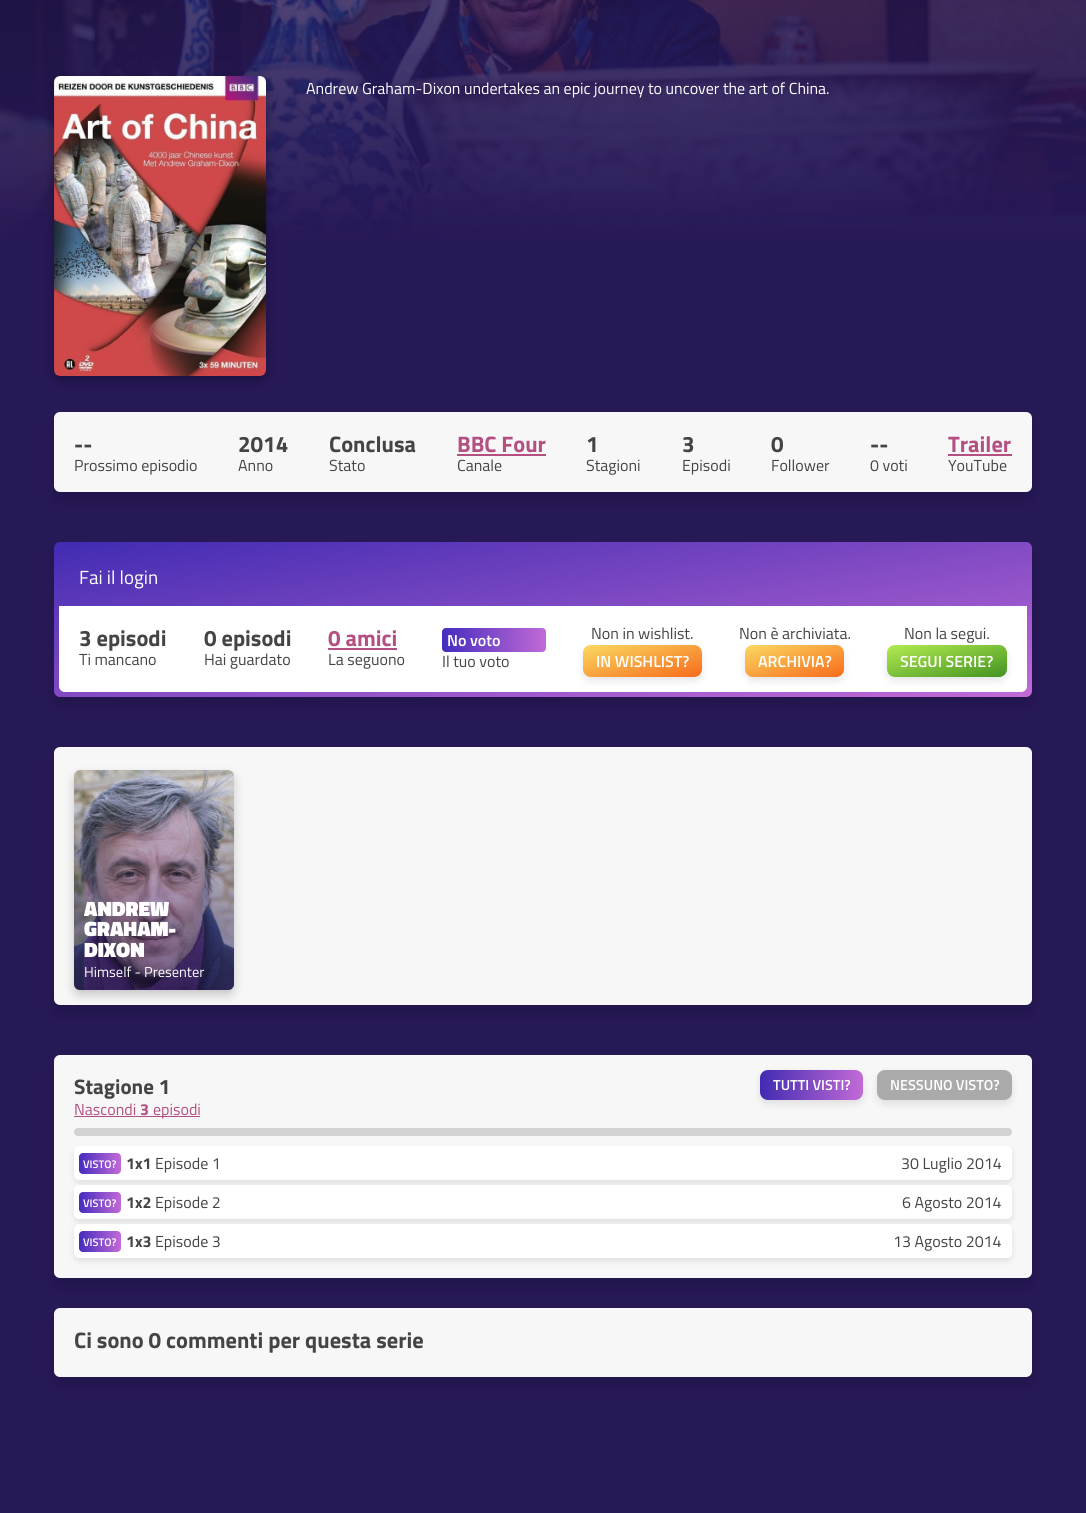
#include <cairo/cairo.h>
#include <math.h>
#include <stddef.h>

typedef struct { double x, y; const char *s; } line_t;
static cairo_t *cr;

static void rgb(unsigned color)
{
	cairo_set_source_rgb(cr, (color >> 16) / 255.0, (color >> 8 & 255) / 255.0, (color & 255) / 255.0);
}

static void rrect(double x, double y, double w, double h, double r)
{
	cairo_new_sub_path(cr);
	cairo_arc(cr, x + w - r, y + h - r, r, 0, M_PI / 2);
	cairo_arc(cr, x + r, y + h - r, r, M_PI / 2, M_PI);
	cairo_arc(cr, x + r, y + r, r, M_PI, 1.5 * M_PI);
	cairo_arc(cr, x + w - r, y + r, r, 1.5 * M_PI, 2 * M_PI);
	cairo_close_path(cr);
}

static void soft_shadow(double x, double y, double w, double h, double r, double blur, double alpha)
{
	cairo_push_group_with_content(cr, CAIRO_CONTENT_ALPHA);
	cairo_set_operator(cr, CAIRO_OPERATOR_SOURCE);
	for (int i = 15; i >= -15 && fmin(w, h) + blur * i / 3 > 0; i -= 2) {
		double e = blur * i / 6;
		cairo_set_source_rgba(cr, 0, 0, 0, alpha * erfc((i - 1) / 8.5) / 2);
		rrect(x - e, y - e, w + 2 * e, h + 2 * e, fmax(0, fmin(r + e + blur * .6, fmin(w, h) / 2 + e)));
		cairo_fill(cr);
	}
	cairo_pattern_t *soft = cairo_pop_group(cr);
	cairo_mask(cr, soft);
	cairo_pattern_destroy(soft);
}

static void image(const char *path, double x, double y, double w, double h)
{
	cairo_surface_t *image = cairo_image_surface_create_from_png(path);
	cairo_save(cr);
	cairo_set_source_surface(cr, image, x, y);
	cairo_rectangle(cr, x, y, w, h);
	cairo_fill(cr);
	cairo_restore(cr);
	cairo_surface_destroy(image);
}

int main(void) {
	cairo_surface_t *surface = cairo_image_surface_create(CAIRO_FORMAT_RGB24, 1086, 1513);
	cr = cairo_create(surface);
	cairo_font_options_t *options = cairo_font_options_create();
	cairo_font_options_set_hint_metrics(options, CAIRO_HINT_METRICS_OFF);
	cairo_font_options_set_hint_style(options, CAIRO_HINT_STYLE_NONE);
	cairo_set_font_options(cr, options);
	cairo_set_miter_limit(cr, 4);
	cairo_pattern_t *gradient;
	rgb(0x271856);
	cairo_paint(cr);
	image("img/1.png", 0, 0, 1086, 242);
	rgb(0x000000);
	soft_shadow(54, 80, 212, 300, 6, 5, 0.3);
	image("img/2.png", 54, 76, 212, 300);
	soft_shadow(54, 420, 978, 80, 6, 5, 0.13);
	rgb(0xf7f7f7);
	rrect(54, 412, 978, 80, 6);
	cairo_fill(cr);
	rgb(0xb35081);
	cairo_rectangle(cr, 457, 454, 89, 2);
	cairo_fill(cr);
	cairo_rectangle(cr, 948, 454, 64, 2);
	cairo_fill(cr);
	rgb(0x000000);
	soft_shadow(54, 550, 978, 155, 6, 5, 0.13);
	gradient = cairo_pattern_create_linear(519, 468, 567, 771);
	cairo_pattern_add_color_stop_rgba(gradient, 0, 0.255, 0.169, 0.698, 1);
	cairo_pattern_add_color_stop_rgba(gradient, 1, 0.761, 0.416, 0.839, 1);
	cairo_set_source(cr, gradient);
	cairo_pattern_destroy(gradient);
	rrect(54, 542, 978, 155, 6);
	cairo_fill(cr);
	rgb(0xffffff);
	cairo_new_path(cr);
	cairo_move_to(cr, 59, 606);
	cairo_line_to(cr, 1027, 606);
	cairo_line_to(cr, 1027, 686);
	cairo_curve_to(cr, 1027, 689.5, 1024.5, 692, 1021, 692);
	cairo_line_to(cr, 65, 692);
	cairo_curve_to(cr, 61.5, 692, 59, 689.5, 59, 686);
	cairo_close_path(cr);
	cairo_fill(cr);
	rgb(0xb35081);
	cairo_rectangle(cr, 328, 648, 69, 2);
	cairo_fill(cr);
	gradient = cairo_pattern_create_linear(442, 640, 546, 640);
	cairo_pattern_add_color_stop_rgba(gradient, 0, 0.267, 0.173, 0.749, 1);
	cairo_pattern_add_color_stop_rgba(gradient, 1, 0.761, 0.416, 0.839, 1);
	cairo_set_source(cr, gradient);
	cairo_pattern_destroy(gradient);
	rrect(442, 628, 104, 24, 4);
	cairo_fill(cr);
	rgb(0x000000);
	soft_shadow(583, 649, 119, 32, 8, 4, 0.1);
	gradient = cairo_pattern_create_linear(634, 631, 651, 691);
	cairo_pattern_add_color_stop_rgba(gradient, 0, 0.98, 0.851, 0.38, 1);
	cairo_pattern_add_color_stop_rgba(gradient, 1, 0.969, 0.42, 0.11, 1);
	cairo_set_source(cr, gradient);
	cairo_pattern_destroy(gradient);
	rrect(583, 645, 119, 32, 8);
	cairo_fill(cr);
	rgb(0x000000);
	soft_shadow(745, 649, 99, 32, 8, 4, 0.1);
	gradient = cairo_pattern_create_linear(785, 632, 804, 690);
	cairo_pattern_add_color_stop_rgba(gradient, 0, 0.98, 0.851, 0.38, 1);
	cairo_pattern_add_color_stop_rgba(gradient, 1, 0.969, 0.42, 0.11, 1);
	cairo_set_source(cr, gradient);
	cairo_pattern_destroy(gradient);
	rrect(745, 645, 99, 32, 8);
	cairo_fill(cr);
	rgb(0x000000);
	soft_shadow(887, 649, 120, 32, 8, 4, 0.1);
	gradient = cairo_pattern_create_linear(939, 631, 955, 691);
	cairo_pattern_add_color_stop_rgba(gradient, 0, 0.706, 0.925, 0.318, 1);
	cairo_pattern_add_color_stop_rgba(gradient, 1, 0.259, 0.576, 0.129, 1);
	cairo_set_source(cr, gradient);
	cairo_pattern_destroy(gradient);
	rrect(887, 645, 120, 32, 8);
	cairo_fill(cr);
	rgb(0x000000);
	soft_shadow(54, 755, 978, 258, 6, 5, 0.13);
	rgb(0xf7f7f7);
	rrect(54, 747, 978, 258, 6);
	cairo_fill(cr);
	rgb(0x000000);
	soft_shadow(74, 775, 160, 220, 6, 5, 0.2);
	image("img/3.png", 74, 770, 160, 220);
	gradient = cairo_pattern_create_linear(154, 770, 154, 990);
	cairo_pattern_add_color_stop_rgba(gradient, 0, 0.157, 0.094, 0.322, 0.1);
	cairo_pattern_add_color_stop_rgba(gradient, 1, 0.157, 0.094, 0.322, 0.6);
	cairo_set_source(cr, gradient);
	cairo_pattern_destroy(gradient);
	rrect(74, 770, 160, 220, 6);
	cairo_fill(cr);
	rgb(0x000000);
	soft_shadow(54, 1063, 978, 223, 6, 5, 0.13);
	rgb(0xf7f7f7);
	rrect(54, 1055, 978, 223, 6);
	cairo_fill(cr);
	rgb(0xb35081);
	cairo_rectangle(cr, 74, 1116, 126, 1);
	cairo_fill(cr);
	rgb(0x000000);
	soft_shadow(760, 1074, 103, 30, 8, 4, 0.1);
	gradient = cairo_pattern_create_linear(760, 1085, 863, 1085);
	cairo_pattern_add_color_stop_rgba(gradient, 0, 0.255, 0.169, 0.698, 1);
	cairo_pattern_add_color_stop_rgba(gradient, 1, 0.761, 0.416, 0.839, 1);
	cairo_set_source(cr, gradient);
	cairo_pattern_destroy(gradient);
	rrect(760, 1070, 103, 30, 8);
	cairo_fill(cr);
	rgb(0x000000);
	soft_shadow(877, 1074, 135, 30, 8, 4, 0.1);
	rgb(0xaaaaaa);
	rrect(877, 1070, 135, 30, 8);
	cairo_fill(cr);
	rgb(0xd2d2d2);
	rrect(74, 1128, 938, 8, 4);
	cairo_fill(cr);
	rgb(0x000000);
	soft_shadow(74, 1149, 938, 34, 5, 3, 0.1);
	rgb(0xffffff);
	rrect(74, 1146, 938, 34, 5);
	cairo_fill(cr);
	gradient = cairo_pattern_create_linear(79, 1164, 121, 1164);
	cairo_pattern_add_color_stop_rgba(gradient, 0, 0.267, 0.173, 0.749, 1);
	cairo_pattern_add_color_stop_rgba(gradient, 1, 0.761, 0.416, 0.839, 1);
	cairo_set_source(cr, gradient);
	cairo_pattern_destroy(gradient);
	rrect(79, 1153, 42, 21, 4);
	cairo_fill(cr);
	rgb(0x000000);
	soft_shadow(74, 1188, 938, 34, 5, 3, 0.1);
	rgb(0xffffff);
	rrect(74, 1185, 938, 34, 5);
	cairo_fill(cr);
	gradient = cairo_pattern_create_linear(79, 1203, 121, 1203);
	cairo_pattern_add_color_stop_rgba(gradient, 0, 0.267, 0.173, 0.749, 1);
	cairo_pattern_add_color_stop_rgba(gradient, 1, 0.761, 0.416, 0.839, 1);
	cairo_set_source(cr, gradient);
	cairo_pattern_destroy(gradient);
	rrect(79, 1192, 42, 21, 4);
	cairo_fill(cr);
	rgb(0x000000);
	soft_shadow(74, 1227, 938, 34, 5, 3, 0.1);
	rgb(0xffffff);
	rrect(74, 1224, 938, 34, 5);
	cairo_fill(cr);
	gradient = cairo_pattern_create_linear(79, 1242, 121, 1242);
	cairo_pattern_add_color_stop_rgba(gradient, 0, 0.267, 0.173, 0.749, 1);
	cairo_pattern_add_color_stop_rgba(gradient, 1, 0.761, 0.416, 0.839, 1);
	cairo_set_source(cr, gradient);
	cairo_pattern_destroy(gradient);
	rrect(79, 1231, 42, 21, 4);
	cairo_fill(cr);
	rgb(0x000000);
	soft_shadow(54, 1316, 978, 69, 6, 5, 0.13);
	rgb(0xf7f7f7);
	rrect(54, 1308, 978, 69, 6);
	cairo_fill(cr);
	cairo_select_font_face(cr, "Titillium Web", CAIRO_FONT_SLANT_NORMAL, CAIRO_FONT_WEIGHT_NORMAL);
	cairo_set_font_size(cr, 16);
	rgb(0xffffff);
	cairo_move_to(cr, 306, 94);
	cairo_show_text(cr, "Andrew Graham-Dixon undertakes an epic journey to uncover the art of China.");
	cairo_select_font_face(cr, "Titillium Web", CAIRO_FONT_SLANT_NORMAL, CAIRO_FONT_WEIGHT_BOLD);
	cairo_set_font_size(cr, 22.4);
	rgb(0x444444);
	cairo_move_to(cr, 74, 452);
	cairo_show_text(cr, "--");
	cairo_select_font_face(cr, "Titillium Web", CAIRO_FONT_SLANT_NORMAL, CAIRO_FONT_WEIGHT_NORMAL);
	cairo_set_font_size(cr, 16);
	cairo_move_to(cr, 74, 471);
	cairo_show_text(cr, "Prossimo episodio");
	cairo_select_font_face(cr, "Titillium Web", CAIRO_FONT_SLANT_NORMAL, CAIRO_FONT_WEIGHT_BOLD);
	cairo_set_font_size(cr, 22.4);
	cairo_move_to(cr, 238, 452);
	cairo_show_text(cr, "2014");
	cairo_select_font_face(cr, "Titillium Web", CAIRO_FONT_SLANT_NORMAL, CAIRO_FONT_WEIGHT_NORMAL);
	cairo_set_font_size(cr, 16);
	cairo_move_to(cr, 238, 471);
	cairo_show_text(cr, "Anno");
	cairo_select_font_face(cr, "Titillium Web", CAIRO_FONT_SLANT_NORMAL, CAIRO_FONT_WEIGHT_BOLD);
	cairo_set_font_size(cr, 22.4);
	cairo_move_to(cr, 329, 452);
	cairo_show_text(cr, "Conclusa");
	cairo_select_font_face(cr, "Titillium Web", CAIRO_FONT_SLANT_NORMAL, CAIRO_FONT_WEIGHT_NORMAL);
	cairo_set_font_size(cr, 16);
	cairo_move_to(cr, 329, 471);
	cairo_show_text(cr, "Stato");
	cairo_select_font_face(cr, "Titillium Web", CAIRO_FONT_SLANT_NORMAL, CAIRO_FONT_WEIGHT_BOLD);
	cairo_set_font_size(cr, 22.4);
	rgb(0xb35081);
	cairo_move_to(cr, 457, 452);
	cairo_show_text(cr, "BBC Four");
	cairo_select_font_face(cr, "Titillium Web", CAIRO_FONT_SLANT_NORMAL, CAIRO_FONT_WEIGHT_NORMAL);
	cairo_set_font_size(cr, 16);
	rgb(0x444444);
	cairo_move_to(cr, 457, 471);
	cairo_show_text(cr, "Canale");
	cairo_select_font_face(cr, "Titillium Web", CAIRO_FONT_SLANT_NORMAL, CAIRO_FONT_WEIGHT_BOLD);
	cairo_set_font_size(cr, 22.4);
	cairo_move_to(cr, 586, 452);
	cairo_show_text(cr, "1");
	cairo_select_font_face(cr, "Titillium Web", CAIRO_FONT_SLANT_NORMAL, CAIRO_FONT_WEIGHT_NORMAL);
	cairo_set_font_size(cr, 16);
	cairo_move_to(cr, 586, 471);
	cairo_show_text(cr, "Stagioni");
	cairo_select_font_face(cr, "Titillium Web", CAIRO_FONT_SLANT_NORMAL, CAIRO_FONT_WEIGHT_BOLD);
	cairo_set_font_size(cr, 22.4);
	cairo_move_to(cr, 682, 452);
	cairo_show_text(cr, "3");
	cairo_select_font_face(cr, "Titillium Web", CAIRO_FONT_SLANT_NORMAL, CAIRO_FONT_WEIGHT_NORMAL);
	cairo_set_font_size(cr, 16);
	cairo_move_to(cr, 682, 471);
	cairo_show_text(cr, "Episodi");
	cairo_select_font_face(cr, "Titillium Web", CAIRO_FONT_SLANT_NORMAL, CAIRO_FONT_WEIGHT_BOLD);
	cairo_set_font_size(cr, 22.4);
	cairo_move_to(cr, 771, 452);
	cairo_show_text(cr, "0");
	cairo_select_font_face(cr, "Titillium Web", CAIRO_FONT_SLANT_NORMAL, CAIRO_FONT_WEIGHT_NORMAL);
	cairo_set_font_size(cr, 16);
	cairo_move_to(cr, 771, 471);
	cairo_show_text(cr, "Follower");
	cairo_select_font_face(cr, "Titillium Web", CAIRO_FONT_SLANT_NORMAL, CAIRO_FONT_WEIGHT_BOLD);
	cairo_set_font_size(cr, 22.4);
	cairo_move_to(cr, 870, 452);
	cairo_show_text(cr, "--");
	cairo_select_font_face(cr, "Titillium Web", CAIRO_FONT_SLANT_NORMAL, CAIRO_FONT_WEIGHT_NORMAL);
	cairo_set_font_size(cr, 16);
	cairo_move_to(cr, 870, 471);
	cairo_show_text(cr, "0 voti");
	cairo_select_font_face(cr, "Titillium Web", CAIRO_FONT_SLANT_NORMAL, CAIRO_FONT_WEIGHT_BOLD);
	cairo_set_font_size(cr, 22.4);
	rgb(0xb35081);
	cairo_move_to(cr, 948, 452);
	cairo_show_text(cr, "Trailer");
	cairo_select_font_face(cr, "Titillium Web", CAIRO_FONT_SLANT_NORMAL, CAIRO_FONT_WEIGHT_NORMAL);
	cairo_set_font_size(cr, 16);
	rgb(0x444444);
	cairo_move_to(cr, 948, 471);
	cairo_show_text(cr, "YouTube");
	cairo_set_font_size(cr, 19);
	rgb(0xffffff);
	cairo_move_to(cr, 79, 584);
	cairo_show_text(cr, "Fai il login");
	cairo_select_font_face(cr, "Titillium Web", CAIRO_FONT_SLANT_NORMAL, CAIRO_FONT_WEIGHT_BOLD);
	cairo_set_font_size(cr, 22.4);
	rgb(0x444444);
	cairo_move_to(cr, 79, 646);
	cairo_show_text(cr, "3 episodi");
	cairo_select_font_face(cr, "Titillium Web", CAIRO_FONT_SLANT_NORMAL, CAIRO_FONT_WEIGHT_NORMAL);
	cairo_set_font_size(cr, 16);
	cairo_move_to(cr, 79, 665);
	cairo_show_text(cr, "Ti mancano");
	cairo_select_font_face(cr, "Titillium Web", CAIRO_FONT_SLANT_NORMAL, CAIRO_FONT_WEIGHT_BOLD);
	cairo_set_font_size(cr, 22.4);
	cairo_move_to(cr, 204, 646);
	cairo_show_text(cr, "0 episodi");
	cairo_select_font_face(cr, "Titillium Web", CAIRO_FONT_SLANT_NORMAL, CAIRO_FONT_WEIGHT_NORMAL);
	cairo_set_font_size(cr, 16);
	cairo_move_to(cr, 204, 665);
	cairo_show_text(cr, "Hai guardato");
	cairo_select_font_face(cr, "Titillium Web", CAIRO_FONT_SLANT_NORMAL, CAIRO_FONT_WEIGHT_BOLD);
	cairo_set_font_size(cr, 22.4);
	rgb(0xb35081);
	cairo_move_to(cr, 328, 646);
	cairo_show_text(cr, "0 amici");
	cairo_select_font_face(cr, "Titillium Web", CAIRO_FONT_SLANT_NORMAL, CAIRO_FONT_WEIGHT_NORMAL);
	cairo_set_font_size(cr, 16);
	rgb(0x444444);
	cairo_move_to(cr, 328, 665);
	cairo_show_text(cr, "La seguono");
	cairo_select_font_face(cr, "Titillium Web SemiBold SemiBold", CAIRO_FONT_SLANT_NORMAL, CAIRO_FONT_WEIGHT_NORMAL);
	rgb(0xffffff);
	cairo_move_to(cr, 447, 646);
	cairo_show_text(cr, "No voto");
	cairo_select_font_face(cr, "Titillium Web", CAIRO_FONT_SLANT_NORMAL, CAIRO_FONT_WEIGHT_NORMAL);
	rgb(0x444444);
	cairo_move_to(cr, 442, 667);
	cairo_show_text(cr, "Il tuo voto");
	cairo_move_to(cr, 591, 639);
	cairo_show_text(cr, "Non in wishlist.");
	cairo_select_font_face(cr, "Titillium Web SemiBold SemiBold", CAIRO_FONT_SLANT_NORMAL, CAIRO_FONT_WEIGHT_NORMAL);
	rgb(0xffffff);
	cairo_move_to(cr, 596, 667);
	cairo_show_text(cr, "IN WISHLIST?");
	cairo_select_font_face(cr, "Titillium Web", CAIRO_FONT_SLANT_NORMAL, CAIRO_FONT_WEIGHT_NORMAL);
	rgb(0x444444);
	cairo_move_to(cr, 739, 639);
	cairo_show_text(cr, "Non è archiviata.");
	cairo_select_font_face(cr, "Titillium Web SemiBold SemiBold", CAIRO_FONT_SLANT_NORMAL, CAIRO_FONT_WEIGHT_NORMAL);
	rgb(0xffffff);
	cairo_move_to(cr, 758, 667);
	cairo_show_text(cr, "ARCHIVIA?");
	cairo_select_font_face(cr, "Titillium Web", CAIRO_FONT_SLANT_NORMAL, CAIRO_FONT_WEIGHT_NORMAL);
	rgb(0x444444);
	cairo_move_to(cr, 904, 639);
	cairo_show_text(cr, "Non la segui.");
	cairo_select_font_face(cr, "Titillium Web SemiBold SemiBold", CAIRO_FONT_SLANT_NORMAL, CAIRO_FONT_WEIGHT_NORMAL);
	rgb(0xffffff);
	cairo_move_to(cr, 900, 667);
	cairo_show_text(cr, "SEGUI SERIE?");
	cairo_select_font_face(cr, "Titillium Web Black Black", CAIRO_FONT_SLANT_NORMAL, CAIRO_FONT_WEIGHT_NORMAL);
	cairo_set_font_size(cr, 21);
	{
		static const line_t items[] = {
			{84, 916, "ANDREW"},
			{84, 936, "GRAHAM-"},
			{84, 957, "DIXON"},
		};
		for (size_t i = 0; i < sizeof items / sizeof *items; i++) {
			cairo_move_to(cr, items[i].x, items[i].y);
			cairo_show_text(cr, items[i].s);
		}
	}
	cairo_select_font_face(cr, "Titillium Web", CAIRO_FONT_SLANT_NORMAL, CAIRO_FONT_WEIGHT_NORMAL);
	cairo_set_font_size(cr, 14.5);
	cairo_move_to(cr, 84, 977);
	cairo_show_text(cr, "Himself - Presenter");
	cairo_select_font_face(cr, "Titillium Web", CAIRO_FONT_SLANT_NORMAL, CAIRO_FONT_WEIGHT_BOLD);
	cairo_set_font_size(cr, 21);
	rgb(0x444444);
	cairo_move_to(cr, 74, 1094);
	cairo_show_text(cr, "Stagione 1");
	cairo_select_font_face(cr, "Titillium Web", CAIRO_FONT_SLANT_NORMAL, CAIRO_FONT_WEIGHT_NORMAL);
	cairo_set_font_size(cr, 16);
	rgb(0xb35081);
	cairo_move_to(cr, 74, 1115);
	cairo_show_text(cr, "Nascondi");
	cairo_select_font_face(cr, "Titillium Web", CAIRO_FONT_SLANT_NORMAL, CAIRO_FONT_WEIGHT_BOLD);
	cairo_move_to(cr, 140, 1115);
	cairo_show_text(cr, "3");
	cairo_select_font_face(cr, "Titillium Web", CAIRO_FONT_SLANT_NORMAL, CAIRO_FONT_WEIGHT_NORMAL);
	cairo_move_to(cr, 153, 1115);
	cairo_show_text(cr, "episodi");
	cairo_select_font_face(cr, "Titillium Web SemiBold SemiBold", CAIRO_FONT_SLANT_NORMAL, CAIRO_FONT_WEIGHT_NORMAL);
	cairo_set_font_size(cr, 14.5);
	rgb(0xffffff);
	cairo_move_to(cr, 773, 1090);
	cairo_show_text(cr, "TUTTI VISTI?");
	cairo_move_to(cr, 890, 1090);
	cairo_show_text(cr, "NESSUNO VISTO?");
	cairo_set_font_size(cr, 11);
	cairo_move_to(cr, 83, 1168);
	cairo_show_text(cr, "VISTO?");
	cairo_select_font_face(cr, "Titillium Web", CAIRO_FONT_SLANT_NORMAL, CAIRO_FONT_WEIGHT_BOLD);
	cairo_set_font_size(cr, 16);
	rgb(0x444444);
	cairo_move_to(cr, 126, 1169);
	cairo_show_text(cr, "1x1");
	cairo_select_font_face(cr, "Titillium Web", CAIRO_FONT_SLANT_NORMAL, CAIRO_FONT_WEIGHT_NORMAL);
	cairo_move_to(cr, 155, 1169);
	cairo_show_text(cr, "Episode 1");
	cairo_move_to(cr, 901, 1169);
	cairo_show_text(cr, "30 Luglio 2014");
	cairo_select_font_face(cr, "Titillium Web SemiBold SemiBold", CAIRO_FONT_SLANT_NORMAL, CAIRO_FONT_WEIGHT_NORMAL);
	cairo_set_font_size(cr, 11);
	rgb(0xffffff);
	cairo_move_to(cr, 83, 1207);
	cairo_show_text(cr, "VISTO?");
	cairo_select_font_face(cr, "Titillium Web", CAIRO_FONT_SLANT_NORMAL, CAIRO_FONT_WEIGHT_BOLD);
	cairo_set_font_size(cr, 16);
	rgb(0x444444);
	cairo_move_to(cr, 126, 1208);
	cairo_show_text(cr, "1x2");
	cairo_select_font_face(cr, "Titillium Web", CAIRO_FONT_SLANT_NORMAL, CAIRO_FONT_WEIGHT_NORMAL);
	cairo_move_to(cr, 155, 1208);
	cairo_show_text(cr, "Episode 2");
	cairo_move_to(cr, 902, 1208);
	cairo_show_text(cr, "6 Agosto 2014");
	cairo_select_font_face(cr, "Titillium Web SemiBold SemiBold", CAIRO_FONT_SLANT_NORMAL, CAIRO_FONT_WEIGHT_NORMAL);
	cairo_set_font_size(cr, 11);
	rgb(0xffffff);
	cairo_move_to(cr, 83, 1246);
	cairo_show_text(cr, "VISTO?");
	cairo_select_font_face(cr, "Titillium Web", CAIRO_FONT_SLANT_NORMAL, CAIRO_FONT_WEIGHT_BOLD);
	cairo_set_font_size(cr, 16);
	rgb(0x444444);
	cairo_move_to(cr, 126, 1247);
	cairo_show_text(cr, "1x3");
	cairo_select_font_face(cr, "Titillium Web", CAIRO_FONT_SLANT_NORMAL, CAIRO_FONT_WEIGHT_NORMAL);
	cairo_move_to(cr, 155, 1247);
	cairo_show_text(cr, "Episode 3");
	cairo_move_to(cr, 893, 1247);
	cairo_show_text(cr, "13 Agosto 2014");
	cairo_select_font_face(cr, "Titillium Web", CAIRO_FONT_SLANT_NORMAL, CAIRO_FONT_WEIGHT_BOLD);
	cairo_set_font_size(cr, 22.4);
	cairo_move_to(cr, 74, 1348);
	cairo_show_text(cr, "Ci sono 0 commenti per questa serie");
	cairo_surface_write_to_png(surface, "page.png");
	cairo_font_options_destroy(options);
	cairo_destroy(cr);
	cairo_surface_destroy(surface);
	return 0;
}
